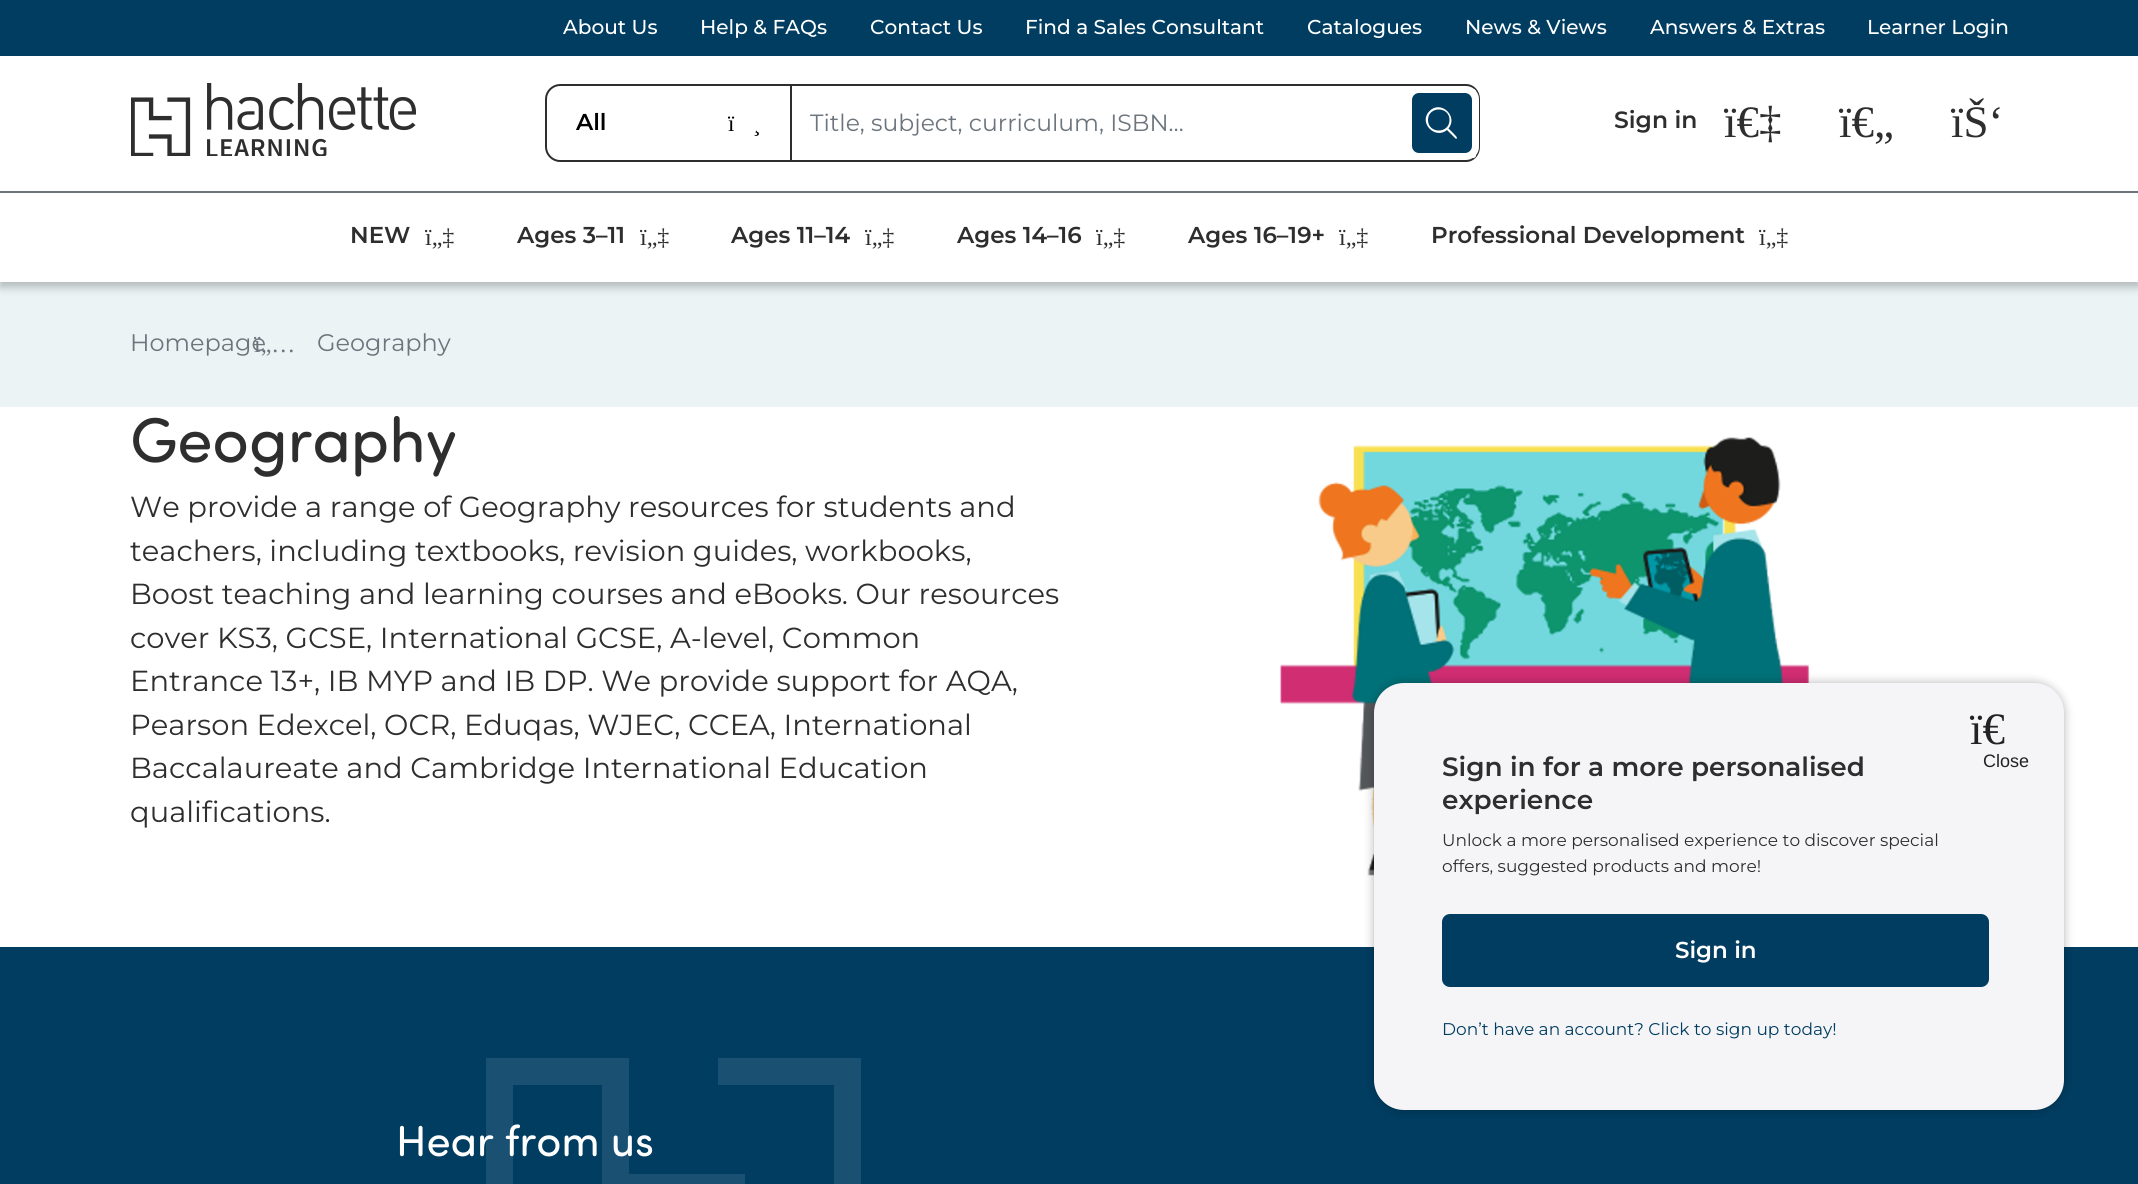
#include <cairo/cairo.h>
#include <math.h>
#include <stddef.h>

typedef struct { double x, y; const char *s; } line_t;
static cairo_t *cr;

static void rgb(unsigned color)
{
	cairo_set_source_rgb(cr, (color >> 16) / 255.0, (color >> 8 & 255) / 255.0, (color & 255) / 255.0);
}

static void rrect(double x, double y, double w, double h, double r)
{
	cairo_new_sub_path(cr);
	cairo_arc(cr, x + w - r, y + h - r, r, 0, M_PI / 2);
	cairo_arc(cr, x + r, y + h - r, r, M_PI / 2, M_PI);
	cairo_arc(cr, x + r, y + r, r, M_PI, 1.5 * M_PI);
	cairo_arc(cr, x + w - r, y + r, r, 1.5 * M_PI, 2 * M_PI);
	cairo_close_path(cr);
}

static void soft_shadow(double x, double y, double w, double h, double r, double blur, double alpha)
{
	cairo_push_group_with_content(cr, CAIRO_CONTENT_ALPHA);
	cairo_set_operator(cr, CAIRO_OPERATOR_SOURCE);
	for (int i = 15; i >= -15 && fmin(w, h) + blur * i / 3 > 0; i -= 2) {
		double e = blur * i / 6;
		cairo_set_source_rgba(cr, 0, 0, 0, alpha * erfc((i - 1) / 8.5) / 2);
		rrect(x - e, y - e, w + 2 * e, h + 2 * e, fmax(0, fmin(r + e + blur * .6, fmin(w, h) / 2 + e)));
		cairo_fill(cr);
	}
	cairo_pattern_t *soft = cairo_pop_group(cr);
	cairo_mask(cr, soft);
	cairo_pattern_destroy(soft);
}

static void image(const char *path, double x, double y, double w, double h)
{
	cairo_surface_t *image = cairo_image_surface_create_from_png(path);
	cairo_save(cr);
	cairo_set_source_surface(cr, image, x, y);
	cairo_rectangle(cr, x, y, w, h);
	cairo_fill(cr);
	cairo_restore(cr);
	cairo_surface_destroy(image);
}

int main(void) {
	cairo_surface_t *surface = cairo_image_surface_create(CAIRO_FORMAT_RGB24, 2138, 1184);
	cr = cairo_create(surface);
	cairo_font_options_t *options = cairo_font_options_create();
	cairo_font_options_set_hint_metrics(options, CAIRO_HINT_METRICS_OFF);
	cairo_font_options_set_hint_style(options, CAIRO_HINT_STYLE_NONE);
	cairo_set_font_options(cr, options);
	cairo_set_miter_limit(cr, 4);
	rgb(0xffffff);
	cairo_paint(cr);
	rgb(0xebf3f4);
	cairo_rectangle(cr, 0, 282, 2138, 125);
	cairo_fill(cr);
	rgb(0x000000);
	soft_shadow(0, 5, 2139, 282, 0, 4.5, 0.25);
	rgb(0xffffff);
	cairo_rectangle(cr, 0, 56, 2138, 226);
	cairo_fill(cr);
	rgb(0x003d61);
	cairo_rectangle(cr, 0, 0, 2138, 56);
	cairo_fill(cr);
	image("img/1.png", 131, 83, 285, 73);
	cairo_new_path(cr);
	cairo_move_to(cr, 560, 85);
	cairo_line_to(cr, 791, 85);
	cairo_line_to(cr, 791, 161);
	cairo_line_to(cr, 560, 161);
	cairo_curve_to(cr, 552.5, 161, 546, 154.5, 546, 147);
	cairo_line_to(cr, 546, 99);
	cairo_curve_to(cr, 546, 91.5, 552.5, 85, 560, 85);
	cairo_close_path(cr);
	rgb(0x2e2e2e);
	cairo_stroke(cr);
	cairo_set_fill_rule(cr, CAIRO_FILL_RULE_EVEN_ODD);
	cairo_new_path(cr);
	cairo_move_to(cr, 792, 84);
	cairo_line_to(cr, 1466, 84);
	cairo_curve_to(cr, 1474, 84, 1480, 91, 1480, 99);
	cairo_line_to(cr, 1480, 147);
	cairo_curve_to(cr, 1480, 155, 1474, 162, 1466, 162);
	cairo_line_to(cr, 792, 162);
	cairo_close_path(cr);
	cairo_move_to(cr, 792, 86);
	cairo_line_to(cr, 1466, 86);
	cairo_curve_to(cr, 1473, 86, 1479, 92, 1479, 99);
	cairo_line_to(cr, 1479, 147);
	cairo_curve_to(cr, 1479, 154, 1473, 160, 1466, 160);
	cairo_line_to(cr, 792, 160);
	cairo_close_path(cr);
	cairo_fill(cr);
	rgb(0xffffff);
	cairo_new_path(cr);
	cairo_move_to(cr, 795, 89);
	cairo_line_to(cr, 1473, 89);
	cairo_curve_to(cr, 1474.5, 89, 1476, 90.5, 1476, 92);
	cairo_line_to(cr, 1476, 155);
	cairo_curve_to(cr, 1476, 156.5, 1474.5, 158, 1473, 158);
	cairo_line_to(cr, 795, 158);
	cairo_close_path(cr);
	cairo_fill(cr);
	cairo_new_path(cr);
	cairo_move_to(cr, 1407, 89);
	cairo_line_to(cr, 1473, 89);
	cairo_curve_to(cr, 1474.5, 89, 1476, 90.5, 1476, 92);
	cairo_line_to(cr, 1476, 155);
	cairo_curve_to(cr, 1476, 156.5, 1474.5, 158, 1473, 158);
	cairo_line_to(cr, 1407, 158);
	cairo_close_path(cr);
	cairo_fill(cr);
	rgb(0x003d61);
	rrect(1412, 93, 60, 60, 7);
	cairo_fill(cr);
	rgb(0xffffff);
	cairo_set_fill_rule(cr, CAIRO_FILL_RULE_WINDING);
	cairo_new_path(cr);
	cairo_move_to(cr, 1449.5, 120);
	cairo_curve_to(cr, 1449.5, 106, 1428, 106, 1428, 120);
	cairo_curve_to(cr, 1428, 134, 1449.5, 134, 1449.5, 120);
	cairo_close_path(cr);
	cairo_move_to(cr, 1447, 130);
	cairo_curve_to(cr, 1435, 140, 1418, 122.5, 1429.5, 111);
	cairo_curve_to(cr, 1441, 99.5, 1458.5, 116.5, 1448.5, 128.5);
	cairo_curve_to(cr, 1449.5, 129.5, 1457.5, 137, 1457, 138);
	cairo_curve_to(cr, 1457, 138.5, 1456, 139, 1455.5, 138.5);
	cairo_close_path(cr);
	cairo_fill(cr);
	rgb(0x6c757d);
	cairo_rectangle(cr, 0, 191, 2138, 2);
	cairo_fill(cr);
	image("img/2.png", 1280, 437, 530, 439);
	rgb(0x003d61);
	cairo_rectangle(cr, 0, 947, 2138, 237);
	cairo_fill(cr);
	rgb(0x000000);
	soft_shadow(1374, 683, 690, 427, 30, 5, 0.3);
	rgb(0xf5f5f7);
	rrect(1374, 683, 690, 427, 30);
	cairo_fill(cr);
	rgb(0x003d61);
	rrect(1443.5, 915.5, 544, 70, 6.5);
	cairo_fill_preserve(cr);
	cairo_set_line_width(cr, 3);
	cairo_stroke(cr);
	rgb(0x1a5071);
	cairo_new_path(cr);
	cairo_move_to(cr, 745, 1174);
	cairo_line_to(cr, 629, 1174);
	cairo_line_to(cr, 629, 1058);
	cairo_line_to(cr, 486, 1058);
	cairo_line_to(cr, 486, 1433);
	cairo_line_to(cr, 629, 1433);
	cairo_line_to(cr, 629, 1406);
	cairo_line_to(cr, 513, 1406);
	cairo_line_to(cr, 513, 1085);
	cairo_line_to(cr, 602, 1085);
	cairo_line_to(cr, 602, 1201);
	cairo_line_to(cr, 745, 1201);
	cairo_close_path(cr);
	cairo_move_to(cr, 861, 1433);
	cairo_line_to(cr, 861, 1058);
	cairo_line_to(cr, 718, 1058);
	cairo_line_to(cr, 718, 1085);
	cairo_line_to(cr, 834, 1085);
	cairo_line_to(cr, 834, 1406);
	cairo_line_to(cr, 745, 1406);
	cairo_line_to(cr, 745, 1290);
	cairo_line_to(cr, 602, 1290);
	cairo_line_to(cr, 602, 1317);
	cairo_line_to(cr, 718, 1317);
	cairo_line_to(cr, 718, 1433);
	cairo_close_path(cr);
	cairo_fill(cr);
	cairo_select_font_face(cr, "Montserrat Medium", CAIRO_FONT_SLANT_NORMAL, CAIRO_FONT_WEIGHT_NORMAL);
	cairo_set_font_size(cr, 20.1);
	rgb(0xffffff);
	{
		static const line_t items[] = {
			{563, 34, "About Us"},
			{700, 34, "Help & FAQs"},
			{870, 34, "Contact Us"},
			{1025, 34, "Find a Sales Consultant"},
			{1307, 34, "Catalogues"},
			{1465, 34, "News & Views"},
			{1650, 34, "Answers & Extras"},
			{1867, 34, "Learner Login"},
		};
		for (size_t i = 0; i < sizeof items / sizeof *items; i++) {
			cairo_move_to(cr, items[i].x, items[i].y);
			cairo_show_text(cr, items[i].s);
		}
	}
	cairo_select_font_face(cr, "Montserrat SemiBold", CAIRO_FONT_SLANT_NORMAL, CAIRO_FONT_WEIGHT_NORMAL);
	cairo_set_font_size(cr, 23);
	rgb(0x000000);
	cairo_move_to(cr, 576, 130);
	cairo_show_text(cr, "All");
	cairo_select_font_face(cr, "Liberation Serif", CAIRO_FONT_SLANT_NORMAL, CAIRO_FONT_WEIGHT_NORMAL);
	cairo_move_to(cr, 728, 131);
	cairo_show_text(cr, "ï");
	cairo_move_to(cr, 753, 131);
	cairo_show_text(cr, "¸");
	cairo_select_font_face(cr, "Montserrat", CAIRO_FONT_SLANT_NORMAL, CAIRO_FONT_WEIGHT_NORMAL);
	cairo_set_font_size(cr, 23.5);
	rgb(0x6c757d);
	cairo_move_to(cr, 810, 131);
	cairo_show_text(cr, "Title, subject, curriculum, ISBN…");
	cairo_select_font_face(cr, "Montserrat SemiBold", CAIRO_FONT_SLANT_NORMAL, CAIRO_FONT_WEIGHT_NORMAL);
	rgb(0x2e2e2e);
	cairo_move_to(cr, 1614, 128);
	cairo_show_text(cr, "Sign in");
	cairo_select_font_face(cr, "Liberation Serif", CAIRO_FONT_SLANT_NORMAL, CAIRO_FONT_WEIGHT_NORMAL);
	cairo_set_font_size(cr, 45);
	{
		static const line_t items[] = {
			{1724, 137, "ï€‡"},
			{1839, 137, "ï€„"},
			{1951, 137, "ïŠ‘"},
		};
		for (size_t i = 0; i < sizeof items / sizeof *items; i++) {
			cairo_move_to(cr, items[i].x, items[i].y);
			cairo_show_text(cr, items[i].s);
		}
	}
	cairo_select_font_face(cr, "Montserrat SemiBold", CAIRO_FONT_SLANT_NORMAL, CAIRO_FONT_WEIGHT_NORMAL);
	cairo_set_font_size(cr, 23);
	cairo_move_to(cr, 350, 243);
	cairo_show_text(cr, "NEW");
	cairo_select_font_face(cr, "Liberation Serif", CAIRO_FONT_SLANT_NORMAL, CAIRO_FONT_WEIGHT_NORMAL);
	cairo_set_font_size(cr, 24);
	cairo_move_to(cr, 425, 245);
	cairo_show_text(cr, "ï„‡");
	cairo_select_font_face(cr, "Montserrat SemiBold", CAIRO_FONT_SLANT_NORMAL, CAIRO_FONT_WEIGHT_NORMAL);
	cairo_set_font_size(cr, 23);
	cairo_move_to(cr, 517, 243);
	cairo_show_text(cr, "Ages 3–11");
	cairo_select_font_face(cr, "Liberation Serif", CAIRO_FONT_SLANT_NORMAL, CAIRO_FONT_WEIGHT_NORMAL);
	cairo_set_font_size(cr, 24);
	cairo_move_to(cr, 640, 245);
	cairo_show_text(cr, "ï„‡");
	cairo_select_font_face(cr, "Montserrat SemiBold", CAIRO_FONT_SLANT_NORMAL, CAIRO_FONT_WEIGHT_NORMAL);
	cairo_set_font_size(cr, 23);
	cairo_move_to(cr, 731, 243);
	cairo_show_text(cr, "Ages 11–14");
	cairo_select_font_face(cr, "Liberation Serif", CAIRO_FONT_SLANT_NORMAL, CAIRO_FONT_WEIGHT_NORMAL);
	cairo_set_font_size(cr, 24);
	cairo_move_to(cr, 865, 245);
	cairo_show_text(cr, "ï„‡");
	cairo_select_font_face(cr, "Montserrat SemiBold", CAIRO_FONT_SLANT_NORMAL, CAIRO_FONT_WEIGHT_NORMAL);
	cairo_set_font_size(cr, 23);
	cairo_move_to(cr, 957, 243);
	cairo_show_text(cr, "Ages 14–16");
	cairo_select_font_face(cr, "Liberation Serif", CAIRO_FONT_SLANT_NORMAL, CAIRO_FONT_WEIGHT_NORMAL);
	cairo_set_font_size(cr, 24);
	cairo_move_to(cr, 1096, 245);
	cairo_show_text(cr, "ï„‡");
	cairo_select_font_face(cr, "Montserrat SemiBold", CAIRO_FONT_SLANT_NORMAL, CAIRO_FONT_WEIGHT_NORMAL);
	cairo_set_font_size(cr, 23);
	cairo_move_to(cr, 1188, 243);
	cairo_show_text(cr, "Ages 16–19+");
	cairo_select_font_face(cr, "Liberation Serif", CAIRO_FONT_SLANT_NORMAL, CAIRO_FONT_WEIGHT_NORMAL);
	cairo_set_font_size(cr, 24);
	cairo_move_to(cr, 1339, 245);
	cairo_show_text(cr, "ï„‡");
	cairo_select_font_face(cr, "Montserrat SemiBold", CAIRO_FONT_SLANT_NORMAL, CAIRO_FONT_WEIGHT_NORMAL);
	cairo_set_font_size(cr, 23);
	cairo_move_to(cr, 1431, 243);
	cairo_show_text(cr, "Professional Development");
	cairo_select_font_face(cr, "Liberation Serif", CAIRO_FONT_SLANT_NORMAL, CAIRO_FONT_WEIGHT_NORMAL);
	cairo_set_font_size(cr, 24);
	cairo_move_to(cr, 1759, 245);
	cairo_show_text(cr, "ï„‡");
	cairo_select_font_face(cr, "Montserrat", CAIRO_FONT_SLANT_NORMAL, CAIRO_FONT_WEIGHT_NORMAL);
	rgb(0x6c757d);
	cairo_move_to(cr, 130, 351);
	cairo_show_text(cr, "Homepage");
	cairo_select_font_face(cr, "Liberation Serif", CAIRO_FONT_SLANT_NORMAL, CAIRO_FONT_WEIGHT_NORMAL);
	cairo_move_to(cr, 254, 352);
	cairo_show_text(cr, "ï„…");
	cairo_select_font_face(cr, "Montserrat", CAIRO_FONT_SLANT_NORMAL, CAIRO_FONT_WEIGHT_NORMAL);
	cairo_move_to(cr, 317, 351);
	cairo_show_text(cr, "Geography");
	cairo_select_font_face(cr, "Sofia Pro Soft", CAIRO_FONT_SLANT_NORMAL, CAIRO_FONT_WEIGHT_NORMAL);
	cairo_set_font_size(cr, 63.5);
	rgb(0x2e2e2e);
	cairo_move_to(cr, 130, 462);
	cairo_show_text(cr, "Geography");
	cairo_select_font_face(cr, "Montserrat", CAIRO_FONT_SLANT_NORMAL, CAIRO_FONT_WEIGHT_NORMAL);
	cairo_set_font_size(cr, 29);
	{
		static const line_t items[] = {
			{130, 517, "We provide a range of Geography resources for students and"},
			{130, 561, "teachers, including textbooks, revision guides, workbooks,"},
			{130, 604, "Boost teaching and learning courses and eBooks. Our resources"},
			{130, 648, "cover KS3, GCSE, International GCSE, A-level, Common"},
			{130, 691, "Entrance 13+, IB MYP and IB DP. We provide support for AQA,"},
			{130, 735, "Pearson Edexcel, OCR, Eduqas, WJEC, CCEA, International"},
			{130, 778, "Baccalaureate and Cambridge International Education"},
			{130, 822, "qualifications."},
		};
		for (size_t i = 0; i < sizeof items / sizeof *items; i++) {
			cairo_move_to(cr, items[i].x, items[i].y);
			cairo_show_text(cr, items[i].s);
		}
	}
	cairo_select_font_face(cr, "Liberation Serif", CAIRO_FONT_SLANT_NORMAL, CAIRO_FONT_WEIGHT_NORMAL);
	cairo_set_font_size(cr, 45);
	rgb(0x222222);
	cairo_move_to(cr, 1970, 744);
	cairo_show_text(cr, "ï€");
	cairo_select_font_face(cr, "Liberation Sans", CAIRO_FONT_SLANT_NORMAL, CAIRO_FONT_WEIGHT_NORMAL);
	cairo_set_font_size(cr, 18);
	cairo_move_to(cr, 1983, 767);
	cairo_show_text(cr, "Close");
	cairo_select_font_face(cr, "Montserrat SemiBold", CAIRO_FONT_SLANT_NORMAL, CAIRO_FONT_WEIGHT_NORMAL);
	cairo_set_font_size(cr, 26.4);
	rgb(0x2e2e2e);
	cairo_move_to(cr, 1442, 776);
	cairo_show_text(cr, "Sign in for a more personalised");
	cairo_move_to(cr, 1442, 809);
	cairo_show_text(cr, "experience");
	cairo_select_font_face(cr, "Montserrat", CAIRO_FONT_SLANT_NORMAL, CAIRO_FONT_WEIGHT_NORMAL);
	cairo_set_font_size(cr, 17);
	cairo_move_to(cr, 1442, 846);
	cairo_show_text(cr, "Unlock a more personalised experience to discover special");
	cairo_move_to(cr, 1442, 872);
	cairo_show_text(cr, "offers, suggested products and more!");
	cairo_select_font_face(cr, "Montserrat SemiBold", CAIRO_FONT_SLANT_NORMAL, CAIRO_FONT_WEIGHT_NORMAL);
	cairo_set_font_size(cr, 23);
	rgb(0xffffff);
	cairo_move_to(cr, 1675, 958);
	cairo_show_text(cr, "Sign in");
	cairo_select_font_face(cr, "Montserrat", CAIRO_FONT_SLANT_NORMAL, CAIRO_FONT_WEIGHT_NORMAL);
	cairo_set_font_size(cr, 17);
	rgb(0x003d61);
	cairo_move_to(cr, 1442, 1035);
	cairo_show_text(cr, "Don’t have an account? Click to sign up today!");
	cairo_select_font_face(cr, "Sofia Pro Soft", CAIRO_FONT_SLANT_NORMAL, CAIRO_FONT_WEIGHT_NORMAL);
	cairo_set_font_size(cr, 43.5);
	rgb(0xffffff);
	cairo_move_to(cr, 396, 1156);
	cairo_show_text(cr, "Hear from us");
	cairo_surface_write_to_png(surface, "page.png");
	cairo_font_options_destroy(options);
	cairo_destroy(cr);
	cairo_surface_destroy(surface);
	return 0;
}
